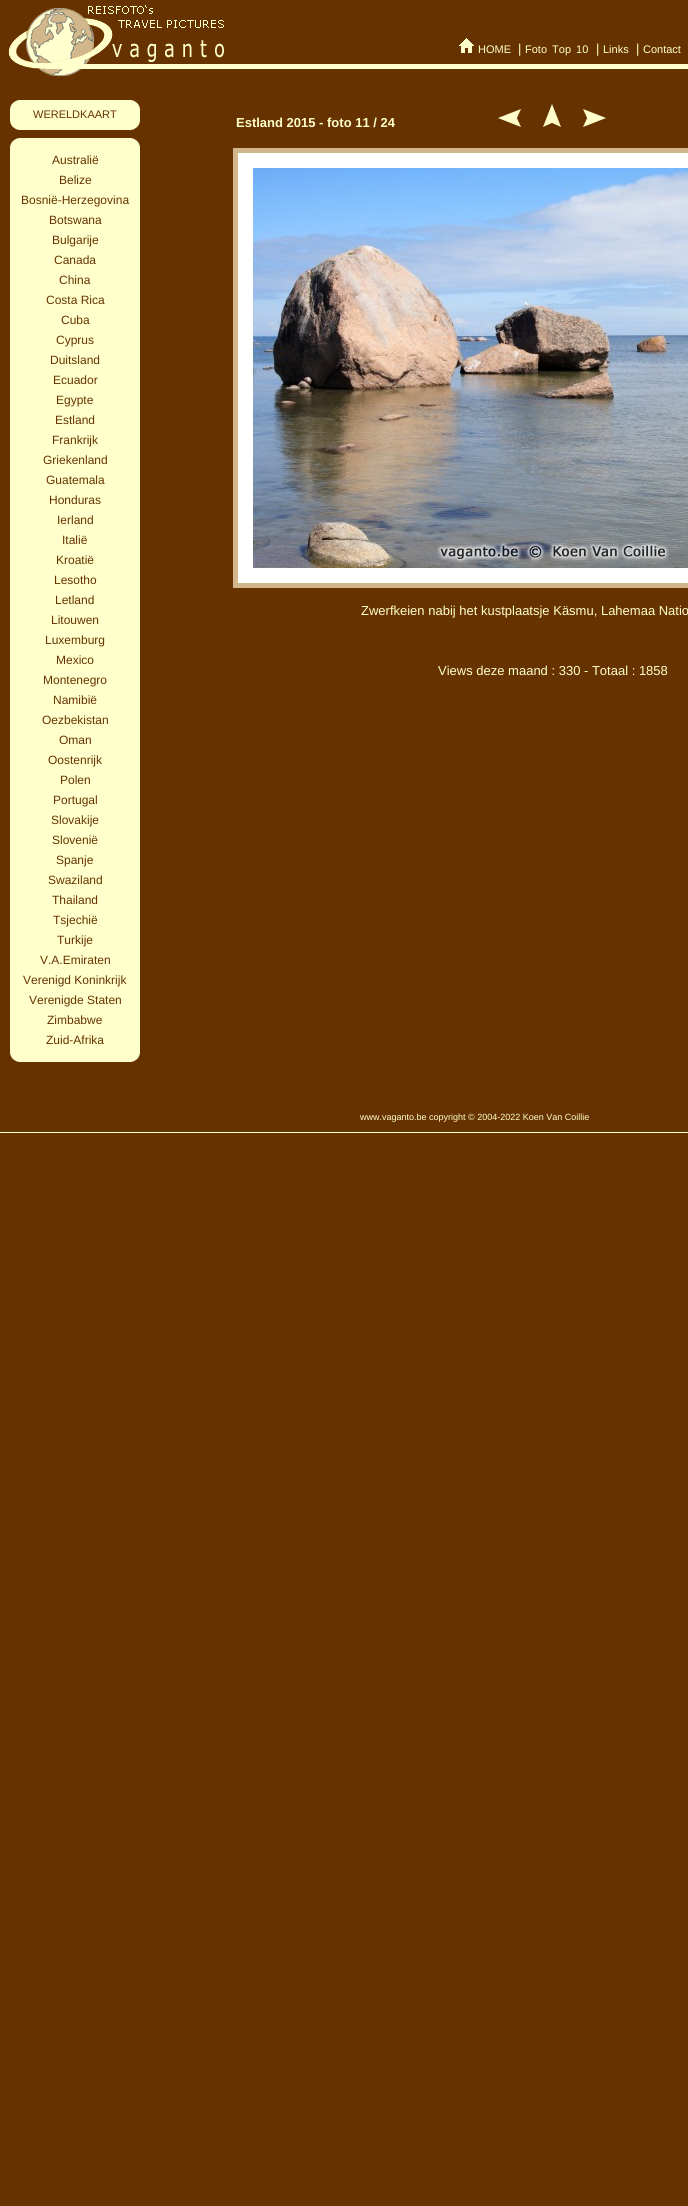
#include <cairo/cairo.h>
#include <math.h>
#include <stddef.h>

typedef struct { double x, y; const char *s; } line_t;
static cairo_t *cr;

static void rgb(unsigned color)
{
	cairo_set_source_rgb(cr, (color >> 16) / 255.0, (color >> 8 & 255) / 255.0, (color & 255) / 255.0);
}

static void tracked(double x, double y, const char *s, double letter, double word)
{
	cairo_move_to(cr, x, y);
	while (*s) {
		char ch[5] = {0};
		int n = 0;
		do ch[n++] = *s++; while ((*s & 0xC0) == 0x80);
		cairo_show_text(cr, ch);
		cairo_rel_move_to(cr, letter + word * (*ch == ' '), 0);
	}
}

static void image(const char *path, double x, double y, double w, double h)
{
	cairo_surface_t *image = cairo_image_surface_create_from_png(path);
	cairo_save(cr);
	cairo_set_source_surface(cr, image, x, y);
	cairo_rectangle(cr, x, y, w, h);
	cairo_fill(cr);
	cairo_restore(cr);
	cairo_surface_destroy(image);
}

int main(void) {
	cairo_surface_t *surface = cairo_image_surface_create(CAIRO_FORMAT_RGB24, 688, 2206);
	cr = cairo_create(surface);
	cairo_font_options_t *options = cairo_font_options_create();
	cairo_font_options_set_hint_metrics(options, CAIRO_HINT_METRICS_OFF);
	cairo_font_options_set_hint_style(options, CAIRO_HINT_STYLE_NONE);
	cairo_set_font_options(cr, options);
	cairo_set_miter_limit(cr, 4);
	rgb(0x663300);
	cairo_paint(cr);
	image("img/1.png", 8, 5, 680, 71);
	image("img/2.png", 459, 38, 15, 15);
	image("img/3.png", 10, 100, 130, 30);
	image("img/4.png", 10, 138, 130, 12);
	rgb(0xffffcc);
	cairo_rectangle(cr, 10, 150, 130, 900);
	cairo_fill(cr);
	image("img/5.png", 10, 1050, 130, 12);
	image("img/6.png", 498, 109, 23, 18);
	image("img/7.png", 543, 104, 18, 23);
	image("img/8.png", 583, 109, 23, 18);
	rgb(0xffffff);
	cairo_rectangle(cr, 235.5, 150.5, 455, 435);
	cairo_fill_preserve(cr);
	rgb(0xd2b78c);
	cairo_set_line_width(cr, 5);
	cairo_stroke(cr);
	image("img/9.png", 253, 168, 435, 400);
	rgb(0xffffcc);
	cairo_rectangle(cr, 0, 1132, 688, 1);
	cairo_fill(cr);
	cairo_select_font_face(cr, "Liberation Sans", CAIRO_FONT_SLANT_NORMAL, CAIRO_FONT_WEIGHT_NORMAL);
	cairo_set_font_size(cr, 11);
	cairo_move_to(cr, 478, 53);
	cairo_show_text(cr, "HOME");
	cairo_set_font_size(cr, 13);
	cairo_move_to(cr, 518, 53);
	cairo_show_text(cr, "|");
	cairo_set_font_size(cr, 11);
	tracked(525, 53, "Foto Top 10", 0, 2);
	cairo_set_font_size(cr, 13);
	cairo_move_to(cr, 596, 53);
	cairo_show_text(cr, "|");
	cairo_set_font_size(cr, 11);
	cairo_move_to(cr, 603, 53);
	cairo_show_text(cr, "Links");
	cairo_set_font_size(cr, 13);
	cairo_move_to(cr, 636, 53);
	cairo_show_text(cr, "|");
	cairo_set_font_size(cr, 11);
	cairo_move_to(cr, 643, 53);
	cairo_show_text(cr, "Contact");
	rgb(0x663300);
	cairo_move_to(cr, 33, 118);
	cairo_show_text(cr, "WERELDKAART");
	cairo_set_font_size(cr, 12);
	{
		static const line_t items[] = {
			{52, 164, "Australië"},
			{59, 184, "Belize"},
			{21, 204, "Bosnië-Herzegovina"},
			{49, 224, "Botswana"},
			{52, 244, "Bulgarije"},
			{54, 264, "Canada"},
			{59, 284, "China"},
			{46, 304, "Costa Rica"},
			{61, 324, "Cuba"},
			{56, 344, "Cyprus"},
			{50, 364, "Duitsland"},
			{53, 384, "Ecuador"},
			{56, 404, "Egypte"},
			{55, 424, "Estland"},
			{52, 444, "Frankrijk"},
			{43, 464, "Griekenland"},
			{46, 484, "Guatemala"},
			{49, 504, "Honduras"},
			{57, 524, "Ierland"},
			{62, 544, "Italië"},
			{56, 564, "Kroatië"},
			{54, 584, "Lesotho"},
			{55, 604, "Letland"},
			{51, 624, "Litouwen"},
			{45, 644, "Luxemburg"},
			{56, 664, "Mexico"},
			{43, 684, "Montenegro"},
			{53, 704, "Namibië"},
			{42, 724, "Oezbekistan"},
			{59, 744, "Oman"},
			{48, 764, "Oostenrijk"},
			{60, 784, "Polen"},
			{53, 804, "Portugal"},
			{51, 824, "Slovakije"},
			{52, 844, "Slovenië"},
			{56, 864, "Spanje"},
			{48, 884, "Swaziland"},
			{52, 904, "Thailand"},
			{53, 924, "Tsjechië"},
			{57, 944, "Turkije"},
			{40, 964, "V.A.Emiraten"},
			{23, 984, "Verenigd Koninkrijk"},
			{29, 1004, "Verenigde Staten"},
			{47, 1024, "Zimbabwe"},
			{46, 1044, "Zuid-Afrika"},
		};
		for (size_t i = 0; i < sizeof items / sizeof *items; i++) {
			cairo_move_to(cr, items[i].x, items[i].y);
			cairo_show_text(cr, items[i].s);
		}
	}
	cairo_select_font_face(cr, "Liberation Sans", CAIRO_FONT_SLANT_NORMAL, CAIRO_FONT_WEIGHT_BOLD);
	cairo_set_font_size(cr, 13);
	rgb(0xffffcc);
	cairo_move_to(cr, 236, 127);
	cairo_show_text(cr, "Estland 2015 - foto 11 / 24");
	cairo_select_font_face(cr, "Liberation Sans", CAIRO_FONT_SLANT_NORMAL, CAIRO_FONT_WEIGHT_NORMAL);
	cairo_move_to(cr, 361, 615);
	cairo_show_text(cr, "Zwerfkeien nabij het kustplaatsje Käsmu, Lahemaa Natio");
	cairo_move_to(cr, 438, 675);
	cairo_show_text(cr, "Views deze maand : 330 - Totaal : 1858");
	cairo_set_font_size(cr, 9);
	cairo_move_to(cr, 360, 1120);
	cairo_show_text(cr, "www.vaganto.be copyright © 2004-2022 Koen Van Coillie");
	cairo_surface_write_to_png(surface, "page.png");
	cairo_font_options_destroy(options);
	cairo_destroy(cr);
	cairo_surface_destroy(surface);
	return 0;
}
